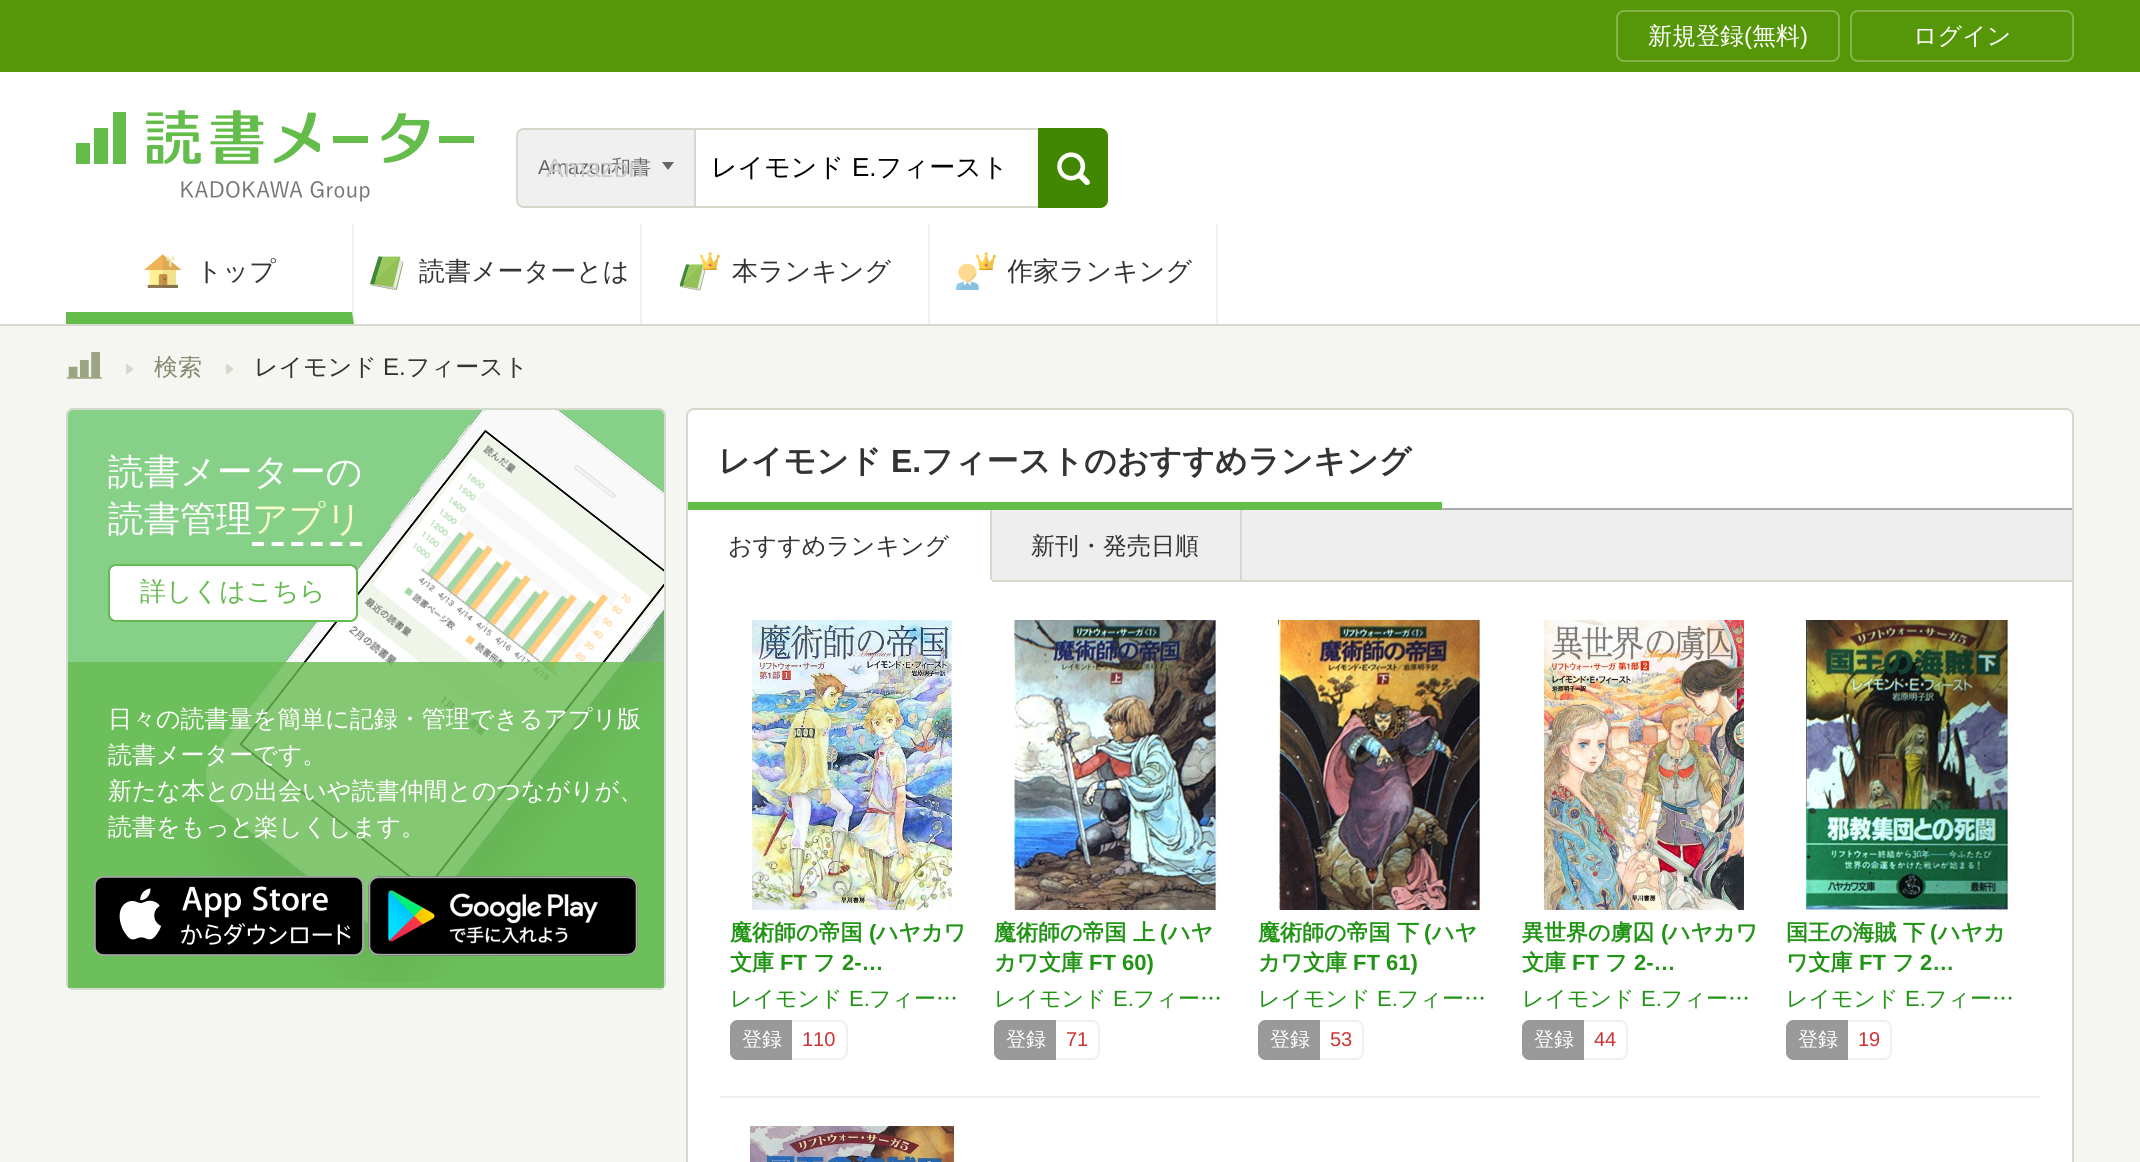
#include <cairo/cairo.h>
#include <math.h>
#include <stddef.h>

typedef struct { double x, y; const char *s; } line_t;
typedef struct { double x, y, w, h; unsigned color; } box_t;
static cairo_t *cr;

static void rgb(unsigned color)
{
	cairo_set_source_rgb(cr, (color >> 16) / 255.0, (color >> 8 & 255) / 255.0, (color & 255) / 255.0);
}

static void rrect(double x, double y, double w, double h, double r)
{
	cairo_new_sub_path(cr);
	cairo_arc(cr, x + w - r, y + h - r, r, 0, M_PI / 2);
	cairo_arc(cr, x + r, y + h - r, r, M_PI / 2, M_PI);
	cairo_arc(cr, x + r, y + r, r, M_PI, 1.5 * M_PI);
	cairo_arc(cr, x + w - r, y + r, r, 1.5 * M_PI, 2 * M_PI);
	cairo_close_path(cr);
}

static void image(const char *path, double x, double y, double w, double h)
{
	cairo_surface_t *image = cairo_image_surface_create_from_png(path);
	cairo_save(cr);
	cairo_set_source_surface(cr, image, x, y);
	cairo_rectangle(cr, x, y, w, h);
	cairo_fill(cr);
	cairo_restore(cr);
	cairo_surface_destroy(image);
}

int main(void) {
	cairo_surface_t *surface = cairo_image_surface_create(CAIRO_FORMAT_RGB24, 2140, 1162);
	cr = cairo_create(surface);
	cairo_font_options_t *options = cairo_font_options_create();
	cairo_font_options_set_hint_metrics(options, CAIRO_HINT_METRICS_OFF);
	cairo_font_options_set_hint_style(options, CAIRO_HINT_STYLE_NONE);
	cairo_set_font_options(cr, options);
	cairo_set_miter_limit(cr, 4);
	rgb(0xf5f6f2);
	cairo_paint(cr);
	{
		static const box_t items[] = {
			{0, 72, 2140, 252, 0xffffff},
			{0, 324, 2140, 2, 0xd4dacb},
			{0, 0, 2140, 72, 0x56970a},
		};
		for (size_t i = 0; i < sizeof items / sizeof *items; i++) {
			rgb(items[i].color);
			cairo_rectangle(cr, items[i].x, items[i].y, items[i].w, items[i].h);
			cairo_fill(cr);
		}
	}
	rrect(1617, 11, 222, 50, 7);
	rgb(0x84b34c);
	cairo_stroke(cr);
	rrect(1851, 11, 222, 50, 7);
	cairo_stroke(cr);
	image("img/1.png", 76, 110, 398, 92);
	rgb(0xf0f0f0);
	cairo_new_path(cr);
	cairo_move_to(cr, 524, 129);
	cairo_line_to(cr, 695, 129);
	cairo_line_to(cr, 695, 207);
	cairo_line_to(cr, 524, 207);
	cairo_curve_to(cr, 520, 207, 517, 204, 517, 200);
	cairo_line_to(cr, 517, 136);
	cairo_curve_to(cr, 517, 132, 520, 129, 524, 129);
	cairo_close_path(cr);
	cairo_fill_preserve(cr);
	rgb(0xd4dacb);
	cairo_stroke(cr);
	image("img/2.png", 662, 162, 12, 8);
	cairo_rectangle(cr, 696, 128, 342, 2);
	cairo_fill(cr);
	cairo_rectangle(cr, 696, 206, 342, 2);
	cairo_fill(cr);
	rgb(0x418701);
	cairo_new_path(cr);
	cairo_move_to(cr, 1039, 129);
	cairo_line_to(cr, 1100, 129);
	cairo_curve_to(cr, 1104, 129, 1107, 132, 1107, 136);
	cairo_line_to(cr, 1107, 200);
	cairo_curve_to(cr, 1107, 204, 1104, 207, 1100, 207);
	cairo_line_to(cr, 1039, 207);
	cairo_close_path(cr);
	cairo_fill_preserve(cr);
	cairo_stroke(cr);
	image("img/3.png", 1057, 152, 33, 34);
	rgb(0xeff1eb);
	cairo_new_path(cr);
	cairo_move_to(cr, 354, 224);
	cairo_line_to(cr, 354, 324);
	cairo_line_to(cr, 352, 312);
	cairo_line_to(cr, 352, 224);
	cairo_close_path(cr);
	cairo_fill(cr);
	rgb(0x64bc4b);
	cairo_new_path(cr);
	cairo_move_to(cr, 354, 324);
	cairo_line_to(cr, 66, 324);
	cairo_line_to(cr, 66, 312);
	cairo_line_to(cr, 352, 312);
	cairo_close_path(cr);
	cairo_fill(cr);
	image("img/4.png", 144, 254, 38, 34);
	rgb(0xeff1eb);
	cairo_rectangle(cr, 640, 224, 2, 100);
	cairo_fill(cr);
	image("img/5.png", 370, 256, 34, 34);
	cairo_rectangle(cr, 928, 224, 2, 100);
	cairo_fill(cr);
	image("img/6.png", 679, 252, 41, 39);
	cairo_rectangle(cr, 1216, 224, 2, 100);
	cairo_fill(cr);
	image("img/7.png", 956, 252, 40, 38);
	image("img/8.png", 67, 351, 35, 28);
	image("img/9.png", 126, 364, 7, 11);
	image("img/9.png", 226, 364, 7, 11);
	rgb(0x86d088);
	rrect(66, 408, 600, 582, 8);
	cairo_fill(cr);
	image("img/10.png", 184, 410, 480, 572);
	rrect(67, 409, 598, 580, 7);
	rgb(0xd4dacb);
	cairo_stroke(cr);
	cairo_new_path(cr);
	cairo_move_to(cr, 252, 544);
	cairo_line_to(cr, 362, 544);
	rgb(0xffffff);
	cairo_set_line_width(cr, 4);
	cairo_set_dash(cr, (double[]){12, 7.6}, 2, 0);
	cairo_stroke(cr);
	rrect(109, 565, 248, 56, 7);
	cairo_fill_preserve(cr);
	rgb(0x64b94f);
	cairo_set_line_width(cr, 2);
	cairo_set_dash(cr, NULL, 0, 0);
	cairo_stroke(cr);
	cairo_set_source_rgba(cr, 0.404, 0.729, 0.322, 0.8);
	cairo_rectangle(cr, 68, 662, 596, 326);
	cairo_fill(cr);
	image("img/11.png", 94, 876, 270, 80);
	image("img/12.png", 368, 876, 270, 80);
	rgb(0xffffff);
	rrect(687, 409, 1386, 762, 7);
	cairo_fill_preserve(cr);
	rgb(0xd4dacb);
	cairo_stroke(cr);
	{
		static const box_t items[] = {
			{1442, 508, 630, 2, 0xaaaaaa},
			{688, 502, 754, 8, 0x64bc4b},
			{992, 510, 1080, 70, 0xeeeeee},
			{990, 510, 2, 72, 0xd4dacb},
			{990, 580, 2, 2, 0xffffff},
			{1240, 510, 2, 72, 0xd4dacb},
			{992, 580, 1080, 2, 0xd4dacb},
			{720, 1096, 1320, 2, 0xf0f0f0},
		};
		for (size_t i = 0; i < sizeof items / sizeof *items; i++) {
			rgb(items[i].color);
			cairo_rectangle(cr, items[i].x, items[i].y, items[i].w, items[i].h);
			cairo_fill(cr);
		}
	}
	image("img/13.png", 752, 620, 200, 290);
	rgb(0x999999);
	cairo_new_path(cr);
	cairo_move_to(cr, 738, 1020);
	cairo_line_to(cr, 792, 1020);
	cairo_line_to(cr, 792, 1060);
	cairo_line_to(cr, 738, 1060);
	cairo_curve_to(cr, 733.5, 1060, 730, 1056.5, 730, 1052);
	cairo_line_to(cr, 730, 1028);
	cairo_curve_to(cr, 730, 1023.5, 733.5, 1020, 738, 1020);
	cairo_close_path(cr);
	cairo_fill(cr);
	cairo_set_fill_rule(cr, CAIRO_FILL_RULE_EVEN_ODD);
	cairo_new_path(cr);
	cairo_move_to(cr, 738, 1020);
	cairo_line_to(cr, 792, 1020);
	cairo_line_to(cr, 792, 1060);
	cairo_line_to(cr, 738, 1060);
	cairo_curve_to(cr, 734, 1060, 730, 1056, 730, 1052);
	cairo_line_to(cr, 730, 1028);
	cairo_curve_to(cr, 730, 1024, 734, 1020, 738, 1020);
	cairo_close_path(cr);
	cairo_move_to(cr, 738, 1022);
	cairo_line_to(cr, 792, 1022);
	cairo_line_to(cr, 792, 1058);
	cairo_line_to(cr, 738, 1058);
	cairo_curve_to(cr, 735, 1058, 732, 1055, 732, 1052);
	cairo_line_to(cr, 732, 1028);
	cairo_curve_to(cr, 732, 1025, 735, 1022, 738, 1022);
	cairo_close_path(cr);
	cairo_fill(cr);
	rgb(0xf0f0f0);
	cairo_new_path(cr);
	cairo_move_to(cr, 792, 1020);
	cairo_line_to(cr, 840, 1020);
	cairo_curve_to(cr, 844, 1020, 848, 1024, 848, 1028);
	cairo_line_to(cr, 848, 1052);
	cairo_curve_to(cr, 848, 1056, 844, 1060, 840, 1060);
	cairo_line_to(cr, 792, 1060);
	cairo_close_path(cr);
	cairo_move_to(cr, 792, 1022);
	cairo_line_to(cr, 840, 1022);
	cairo_curve_to(cr, 843, 1022, 846, 1025, 846, 1028);
	cairo_line_to(cr, 846, 1052);
	cairo_curve_to(cr, 846, 1055, 843, 1058, 840, 1058);
	cairo_line_to(cr, 792, 1058);
	cairo_close_path(cr);
	cairo_fill(cr);
	image("img/14.png", 1014, 620, 204, 290);
	rgb(0x999999);
	cairo_new_path(cr);
	cairo_move_to(cr, 1002, 1020);
	cairo_line_to(cr, 1056, 1020);
	cairo_line_to(cr, 1056, 1060);
	cairo_line_to(cr, 1002, 1060);
	cairo_curve_to(cr, 997.5, 1060, 994, 1056.5, 994, 1052);
	cairo_line_to(cr, 994, 1028);
	cairo_curve_to(cr, 994, 1023.5, 997.5, 1020, 1002, 1020);
	cairo_close_path(cr);
	cairo_fill(cr);
	cairo_new_path(cr);
	cairo_move_to(cr, 1002, 1020);
	cairo_line_to(cr, 1056, 1020);
	cairo_line_to(cr, 1056, 1060);
	cairo_line_to(cr, 1002, 1060);
	cairo_curve_to(cr, 998, 1060, 994, 1056, 994, 1052);
	cairo_line_to(cr, 994, 1028);
	cairo_curve_to(cr, 994, 1024, 998, 1020, 1002, 1020);
	cairo_close_path(cr);
	cairo_move_to(cr, 1002, 1022);
	cairo_line_to(cr, 1056, 1022);
	cairo_line_to(cr, 1056, 1058);
	cairo_line_to(cr, 1002, 1058);
	cairo_curve_to(cr, 999, 1058, 996, 1055, 996, 1052);
	cairo_line_to(cr, 996, 1028);
	cairo_curve_to(cr, 996, 1025, 999, 1022, 1002, 1022);
	cairo_close_path(cr);
	cairo_fill(cr);
	rgb(0xf0f0f0);
	cairo_new_path(cr);
	cairo_move_to(cr, 1056, 1020);
	cairo_line_to(cr, 1092, 1020);
	cairo_curve_to(cr, 1096, 1020, 1100, 1024, 1100, 1028);
	cairo_line_to(cr, 1100, 1052);
	cairo_curve_to(cr, 1100, 1056, 1096, 1060, 1092, 1060);
	cairo_line_to(cr, 1056, 1060);
	cairo_close_path(cr);
	cairo_move_to(cr, 1056, 1022);
	cairo_line_to(cr, 1092, 1022);
	cairo_curve_to(cr, 1095, 1022, 1098, 1025, 1098, 1028);
	cairo_line_to(cr, 1098, 1052);
	cairo_curve_to(cr, 1098, 1055, 1095, 1058, 1092, 1058);
	cairo_line_to(cr, 1056, 1058);
	cairo_close_path(cr);
	cairo_fill(cr);
	image("img/15.png", 1278, 620, 204, 290);
	rgb(0x999999);
	cairo_new_path(cr);
	cairo_move_to(cr, 1266, 1020);
	cairo_line_to(cr, 1320, 1020);
	cairo_line_to(cr, 1320, 1060);
	cairo_line_to(cr, 1266, 1060);
	cairo_curve_to(cr, 1261.5, 1060, 1258, 1056.5, 1258, 1052);
	cairo_line_to(cr, 1258, 1028);
	cairo_curve_to(cr, 1258, 1023.5, 1261.5, 1020, 1266, 1020);
	cairo_close_path(cr);
	cairo_fill(cr);
	cairo_new_path(cr);
	cairo_move_to(cr, 1266, 1020);
	cairo_line_to(cr, 1320, 1020);
	cairo_line_to(cr, 1320, 1060);
	cairo_line_to(cr, 1266, 1060);
	cairo_curve_to(cr, 1262, 1060, 1258, 1056, 1258, 1052);
	cairo_line_to(cr, 1258, 1028);
	cairo_curve_to(cr, 1258, 1024, 1262, 1020, 1266, 1020);
	cairo_close_path(cr);
	cairo_move_to(cr, 1266, 1022);
	cairo_line_to(cr, 1320, 1022);
	cairo_line_to(cr, 1320, 1058);
	cairo_line_to(cr, 1266, 1058);
	cairo_curve_to(cr, 1263, 1058, 1260, 1055, 1260, 1052);
	cairo_line_to(cr, 1260, 1028);
	cairo_curve_to(cr, 1260, 1025, 1263, 1022, 1266, 1022);
	cairo_close_path(cr);
	cairo_fill(cr);
	rgb(0xf0f0f0);
	cairo_new_path(cr);
	cairo_move_to(cr, 1320, 1020);
	cairo_line_to(cr, 1356, 1020);
	cairo_curve_to(cr, 1360, 1020, 1364, 1024, 1364, 1028);
	cairo_line_to(cr, 1364, 1052);
	cairo_curve_to(cr, 1364, 1056, 1360, 1060, 1356, 1060);
	cairo_line_to(cr, 1320, 1060);
	cairo_close_path(cr);
	cairo_move_to(cr, 1320, 1022);
	cairo_line_to(cr, 1356, 1022);
	cairo_curve_to(cr, 1359, 1022, 1362, 1025, 1362, 1028);
	cairo_line_to(cr, 1362, 1052);
	cairo_curve_to(cr, 1362, 1055, 1359, 1058, 1356, 1058);
	cairo_line_to(cr, 1320, 1058);
	cairo_close_path(cr);
	cairo_fill(cr);
	image("img/16.png", 1544, 620, 200, 290);
	rgb(0x999999);
	cairo_new_path(cr);
	cairo_move_to(cr, 1530, 1020);
	cairo_line_to(cr, 1584, 1020);
	cairo_line_to(cr, 1584, 1060);
	cairo_line_to(cr, 1530, 1060);
	cairo_curve_to(cr, 1525.5, 1060, 1522, 1056.5, 1522, 1052);
	cairo_line_to(cr, 1522, 1028);
	cairo_curve_to(cr, 1522, 1023.5, 1525.5, 1020, 1530, 1020);
	cairo_close_path(cr);
	cairo_fill(cr);
	cairo_new_path(cr);
	cairo_move_to(cr, 1530, 1020);
	cairo_line_to(cr, 1584, 1020);
	cairo_line_to(cr, 1584, 1060);
	cairo_line_to(cr, 1530, 1060);
	cairo_curve_to(cr, 1526, 1060, 1522, 1056, 1522, 1052);
	cairo_line_to(cr, 1522, 1028);
	cairo_curve_to(cr, 1522, 1024, 1526, 1020, 1530, 1020);
	cairo_close_path(cr);
	cairo_move_to(cr, 1530, 1022);
	cairo_line_to(cr, 1584, 1022);
	cairo_line_to(cr, 1584, 1058);
	cairo_line_to(cr, 1530, 1058);
	cairo_curve_to(cr, 1527, 1058, 1524, 1055, 1524, 1052);
	cairo_line_to(cr, 1524, 1028);
	cairo_curve_to(cr, 1524, 1025, 1527, 1022, 1530, 1022);
	cairo_close_path(cr);
	cairo_fill(cr);
	rgb(0xf0f0f0);
	cairo_new_path(cr);
	cairo_move_to(cr, 1584, 1020);
	cairo_line_to(cr, 1620, 1020);
	cairo_curve_to(cr, 1624, 1020, 1628, 1024, 1628, 1028);
	cairo_line_to(cr, 1628, 1052);
	cairo_curve_to(cr, 1628, 1056, 1624, 1060, 1620, 1060);
	cairo_line_to(cr, 1584, 1060);
	cairo_close_path(cr);
	cairo_move_to(cr, 1584, 1022);
	cairo_line_to(cr, 1620, 1022);
	cairo_curve_to(cr, 1623, 1022, 1626, 1025, 1626, 1028);
	cairo_line_to(cr, 1626, 1052);
	cairo_curve_to(cr, 1626, 1055, 1623, 1058, 1620, 1058);
	cairo_line_to(cr, 1584, 1058);
	cairo_close_path(cr);
	cairo_fill(cr);
	image("img/17.png", 1806, 620, 204, 290);
	rgb(0x999999);
	cairo_new_path(cr);
	cairo_move_to(cr, 1794, 1020);
	cairo_line_to(cr, 1848, 1020);
	cairo_line_to(cr, 1848, 1060);
	cairo_line_to(cr, 1794, 1060);
	cairo_curve_to(cr, 1789.5, 1060, 1786, 1056.5, 1786, 1052);
	cairo_line_to(cr, 1786, 1028);
	cairo_curve_to(cr, 1786, 1023.5, 1789.5, 1020, 1794, 1020);
	cairo_close_path(cr);
	cairo_fill(cr);
	cairo_new_path(cr);
	cairo_move_to(cr, 1794, 1020);
	cairo_line_to(cr, 1848, 1020);
	cairo_line_to(cr, 1848, 1060);
	cairo_line_to(cr, 1794, 1060);
	cairo_curve_to(cr, 1790, 1060, 1786, 1056, 1786, 1052);
	cairo_line_to(cr, 1786, 1028);
	cairo_curve_to(cr, 1786, 1024, 1790, 1020, 1794, 1020);
	cairo_close_path(cr);
	cairo_move_to(cr, 1794, 1022);
	cairo_line_to(cr, 1848, 1022);
	cairo_line_to(cr, 1848, 1058);
	cairo_line_to(cr, 1794, 1058);
	cairo_curve_to(cr, 1791, 1058, 1788, 1055, 1788, 1052);
	cairo_line_to(cr, 1788, 1028);
	cairo_curve_to(cr, 1788, 1025, 1791, 1022, 1794, 1022);
	cairo_close_path(cr);
	cairo_fill(cr);
	rgb(0xf0f0f0);
	cairo_new_path(cr);
	cairo_move_to(cr, 1848, 1020);
	cairo_line_to(cr, 1884, 1020);
	cairo_curve_to(cr, 1888, 1020, 1892, 1024, 1892, 1028);
	cairo_line_to(cr, 1892, 1052);
	cairo_curve_to(cr, 1892, 1056, 1888, 1060, 1884, 1060);
	cairo_line_to(cr, 1848, 1060);
	cairo_close_path(cr);
	cairo_move_to(cr, 1848, 1022);
	cairo_line_to(cr, 1884, 1022);
	cairo_curve_to(cr, 1887, 1022, 1890, 1025, 1890, 1028);
	cairo_line_to(cr, 1890, 1052);
	cairo_curve_to(cr, 1890, 1055, 1887, 1058, 1884, 1058);
	cairo_line_to(cr, 1848, 1058);
	cairo_close_path(cr);
	cairo_fill(cr);
	image("img/18.png", 750, 1126, 204, 36);
	cairo_select_font_face(cr, "WenQuanYi Zen Hei Medium", CAIRO_FONT_SLANT_NORMAL, CAIRO_FONT_WEIGHT_NORMAL);
	cairo_set_font_size(cr, 24);
	rgb(0xffffff);
	cairo_move_to(cr, 1648, 44);
	cairo_show_text(cr, "新規登録");
	cairo_select_font_face(cr, "Liberation Sans", CAIRO_FONT_SLANT_NORMAL, CAIRO_FONT_WEIGHT_NORMAL);
	cairo_move_to(cr, 1744, 44);
	cairo_show_text(cr, "(");
	cairo_select_font_face(cr, "WenQuanYi Zen Hei Medium", CAIRO_FONT_SLANT_NORMAL, CAIRO_FONT_WEIGHT_NORMAL);
	cairo_move_to(cr, 1752, 44);
	cairo_show_text(cr, "無料");
	cairo_select_font_face(cr, "Liberation Sans", CAIRO_FONT_SLANT_NORMAL, CAIRO_FONT_WEIGHT_NORMAL);
	cairo_move_to(cr, 1800, 44);
	cairo_show_text(cr, ")");
	cairo_select_font_face(cr, "WenQuanYi Zen Hei Medium", CAIRO_FONT_SLANT_NORMAL, CAIRO_FONT_WEIGHT_NORMAL);
	cairo_move_to(cr, 1913, 44);
	cairo_show_text(cr, "ログイン");
	cairo_set_font_size(cr, 20);
	rgb(0x666666);
	cairo_move_to(cr, 611, 174);
	cairo_show_text(cr, "和書");
	cairo_select_font_face(cr, "Liberation Sans", CAIRO_FONT_SLANT_NORMAL, CAIRO_FONT_WEIGHT_NORMAL);
	cairo_move_to(cr, 538, 174);
	cairo_show_text(cr, "Amazon");
	cairo_save(cr);
	cairo_set_fill_rule(cr, CAIRO_FILL_RULE_WINDING);
	cairo_rectangle(cr, 546, 152, 96, 34);
	cairo_clip(cr);
	cairo_set_font_size(cr, 26.5);
	rgb(0xcacaca);
	cairo_move_to(cr, 546, 177);
	cairo_show_text(cr, "Amazon");
	cairo_restore(cr);
	cairo_select_font_face(cr, "WenQuanYi Zen Hei Medium", CAIRO_FONT_SLANT_NORMAL, CAIRO_FONT_WEIGHT_NORMAL);
	cairo_set_font_size(cr, 26);
	rgb(0x000000);
	cairo_move_to(cr, 711, 176);
	cairo_show_text(cr, "レイモンド");
	cairo_select_font_face(cr, "Liberation Sans", CAIRO_FONT_SLANT_NORMAL, CAIRO_FONT_WEIGHT_NORMAL);
	cairo_move_to(cr, 852, 176);
	cairo_show_text(cr, "E.");
	cairo_select_font_face(cr, "WenQuanYi Zen Hei Medium", CAIRO_FONT_SLANT_NORMAL, CAIRO_FONT_WEIGHT_NORMAL);
	cairo_move_to(cr, 876, 176);
	cairo_show_text(cr, "フィースト");
	rgb(0x333333);
	{
		static const line_t items[] = {
			{196, 280, "トップ"},
			{419, 280, "読書メーターとは"},
			{732, 280, "本ランキング"},
		};
		for (size_t i = 0; i < sizeof items / sizeof *items; i++) {
			cairo_move_to(cr, items[i].x, items[i].y);
			cairo_show_text(cr, items[i].s);
		}
	}
	cairo_save(cr);
	cairo_set_fill_rule(cr, CAIRO_FILL_RULE_WINDING);
	cairo_rectangle(cr, 1008, 248, 184, 48);
	cairo_clip(cr);
	cairo_move_to(cr, 1007, 280);
	cairo_show_text(cr, "作家ランキング");
	cairo_restore(cr);
	cairo_save(cr);
	cairo_set_fill_rule(cr, CAIRO_FILL_RULE_WINDING);
	cairo_rectangle(cr, 126, 356, 76, 24);
	cairo_clip(cr);
	cairo_set_font_size(cr, 24);
	rgb(0x848b6e);
	cairo_move_to(cr, 154, 375);
	cairo_show_text(cr, "検索");
	cairo_restore(cr);
	cairo_set_font_size(cr, 24);
	cairo_move_to(cr, 254, 375);
	cairo_show_text(cr, "レイモンド");
	cairo_select_font_face(cr, "Liberation Sans", CAIRO_FONT_SLANT_NORMAL, CAIRO_FONT_WEIGHT_NORMAL);
	cairo_move_to(cr, 383, 375);
	cairo_show_text(cr, "E.");
	cairo_select_font_face(cr, "WenQuanYi Zen Hei Medium", CAIRO_FONT_SLANT_NORMAL, CAIRO_FONT_WEIGHT_NORMAL);
	cairo_move_to(cr, 406, 375);
	cairo_show_text(cr, "フィースト");
	cairo_set_font_size(cr, 36);
	rgb(0xffffff);
	cairo_move_to(cr, 108, 484);
	cairo_show_text(cr, "読書メーターの");
	cairo_move_to(cr, 108, 531);
	cairo_show_text(cr, "読書管理");
	rgb(0xfaffcb);
	cairo_move_to(cr, 252, 531);
	cairo_show_text(cr, "アプリ");
	cairo_set_font_size(cr, 26);
	rgb(0x67ba52);
	cairo_move_to(cr, 140, 600);
	cairo_show_text(cr, "詳しくはこちら");
	cairo_set_font_size(cr, 24);
	rgb(0xffffff);
	{
		static const line_t items[] = {
			{108, 727, "日々の読書量を簡単に記録・管理できるアプリ版"},
			{108, 763, "読書メーターです。"},
			{108, 799, "新たな本との出会いや読書仲間とのつながりが、"},
			{108, 835, "読書をもっと楽しくします。"},
		};
		for (size_t i = 0; i < sizeof items / sizeof *items; i++) {
			cairo_move_to(cr, items[i].x, items[i].y);
			cairo_show_text(cr, items[i].s);
		}
	}
	cairo_select_font_face(cr, "WenQuanYi Zen Hei", CAIRO_FONT_SLANT_NORMAL, CAIRO_FONT_WEIGHT_BOLD);
	cairo_set_font_size(cr, 32);
	rgb(0x333333);
	cairo_move_to(cr, 718, 472);
	cairo_show_text(cr, "レイモンド");
	cairo_select_font_face(cr, "Liberation Sans", CAIRO_FONT_SLANT_NORMAL, CAIRO_FONT_WEIGHT_BOLD);
	cairo_move_to(cr, 891, 472);
	cairo_show_text(cr, "E.");
	cairo_select_font_face(cr, "WenQuanYi Zen Hei", CAIRO_FONT_SLANT_NORMAL, CAIRO_FONT_WEIGHT_BOLD);
	cairo_move_to(cr, 921, 472);
	cairo_show_text(cr, "フィースト");
	cairo_move_to(cr, 1084, 472);
	cairo_show_text(cr, "のおすすめランキング");
	cairo_select_font_face(cr, "WenQuanYi Zen Hei Medium", CAIRO_FONT_SLANT_NORMAL, CAIRO_FONT_WEIGHT_NORMAL);
	cairo_set_font_size(cr, 24);
	cairo_move_to(cr, 728, 554);
	cairo_show_text(cr, "おすすめランキング");
	cairo_move_to(cr, 1031, 554);
	cairo_show_text(cr, "新刊・発売日順");
	cairo_select_font_face(cr, "WenQuanYi Zen Hei", CAIRO_FONT_SLANT_NORMAL, CAIRO_FONT_WEIGHT_BOLD);
	cairo_set_font_size(cr, 22);
	rgb(0x219315);
	cairo_move_to(cr, 730, 940);
	cairo_show_text(cr, "魔術師の帝国");
	cairo_select_font_face(cr, "Liberation Sans", CAIRO_FONT_SLANT_NORMAL, CAIRO_FONT_WEIGHT_BOLD);
	cairo_move_to(cr, 869, 940);
	cairo_show_text(cr, "(");
	cairo_select_font_face(cr, "WenQuanYi Zen Hei", CAIRO_FONT_SLANT_NORMAL, CAIRO_FONT_WEIGHT_BOLD);
	cairo_move_to(cr, 876, 940);
	cairo_show_text(cr, "ハヤカワ");
	cairo_move_to(cr, 730, 970);
	cairo_show_text(cr, "文庫");
	cairo_select_font_face(cr, "Liberation Sans", CAIRO_FONT_SLANT_NORMAL, CAIRO_FONT_WEIGHT_BOLD);
	cairo_move_to(cr, 780, 970);
	cairo_show_text(cr, "FT");
	cairo_select_font_face(cr, "WenQuanYi Zen Hei", CAIRO_FONT_SLANT_NORMAL, CAIRO_FONT_WEIGHT_BOLD);
	cairo_move_to(cr, 813, 970);
	cairo_show_text(cr, "フ");
	cairo_select_font_face(cr, "Liberation Sans", CAIRO_FONT_SLANT_NORMAL, CAIRO_FONT_WEIGHT_BOLD);
	cairo_move_to(cr, 842, 970);
	cairo_show_text(cr, "2-…");
	cairo_select_font_face(cr, "WenQuanYi Zen Hei Medium", CAIRO_FONT_SLANT_NORMAL, CAIRO_FONT_WEIGHT_NORMAL);
	cairo_move_to(cr, 730, 1006);
	cairo_show_text(cr, "レイモンド");
	cairo_select_font_face(cr, "Liberation Sans", CAIRO_FONT_SLANT_NORMAL, CAIRO_FONT_WEIGHT_NORMAL);
	cairo_move_to(cr, 849, 1006);
	cairo_show_text(cr, "E.");
	cairo_select_font_face(cr, "WenQuanYi Zen Hei Medium", CAIRO_FONT_SLANT_NORMAL, CAIRO_FONT_WEIGHT_NORMAL);
	cairo_move_to(cr, 869, 1006);
	cairo_show_text(cr, "フィー…");
	cairo_set_font_size(cr, 20);
	rgb(0xffffff);
	cairo_move_to(cr, 742, 1046);
	cairo_show_text(cr, "登録");
	cairo_select_font_face(cr, "Liberation Sans", CAIRO_FONT_SLANT_NORMAL, CAIRO_FONT_WEIGHT_NORMAL);
	rgb(0xcc3333);
	cairo_move_to(cr, 802, 1046);
	cairo_show_text(cr, "110");
	cairo_select_font_face(cr, "WenQuanYi Zen Hei", CAIRO_FONT_SLANT_NORMAL, CAIRO_FONT_WEIGHT_BOLD);
	cairo_set_font_size(cr, 22);
	rgb(0x219315);
	cairo_move_to(cr, 994, 940);
	cairo_show_text(cr, "魔術師の帝国 上");
	cairo_select_font_face(cr, "Liberation Sans", CAIRO_FONT_SLANT_NORMAL, CAIRO_FONT_WEIGHT_BOLD);
	cairo_move_to(cr, 1160, 940);
	cairo_show_text(cr, "(");
	cairo_select_font_face(cr, "WenQuanYi Zen Hei", CAIRO_FONT_SLANT_NORMAL, CAIRO_FONT_WEIGHT_BOLD);
	cairo_move_to(cr, 1168, 940);
	cairo_show_text(cr, "ハヤ");
	cairo_move_to(cr, 994, 970);
	cairo_show_text(cr, "カワ文庫");
	cairo_select_font_face(cr, "Liberation Sans", CAIRO_FONT_SLANT_NORMAL, CAIRO_FONT_WEIGHT_BOLD);
	cairo_move_to(cr, 1089, 970);
	cairo_show_text(cr, "FT 60)");
	cairo_select_font_face(cr, "WenQuanYi Zen Hei Medium", CAIRO_FONT_SLANT_NORMAL, CAIRO_FONT_WEIGHT_NORMAL);
	cairo_move_to(cr, 994, 1006);
	cairo_show_text(cr, "レイモンド");
	cairo_select_font_face(cr, "Liberation Sans", CAIRO_FONT_SLANT_NORMAL, CAIRO_FONT_WEIGHT_NORMAL);
	cairo_move_to(cr, 1113, 1006);
	cairo_show_text(cr, "E.");
	cairo_select_font_face(cr, "WenQuanYi Zen Hei Medium", CAIRO_FONT_SLANT_NORMAL, CAIRO_FONT_WEIGHT_NORMAL);
	cairo_move_to(cr, 1133, 1006);
	cairo_show_text(cr, "フィー…");
	cairo_set_font_size(cr, 20);
	rgb(0xffffff);
	cairo_move_to(cr, 1006, 1046);
	cairo_show_text(cr, "登録");
	cairo_select_font_face(cr, "Liberation Sans", CAIRO_FONT_SLANT_NORMAL, CAIRO_FONT_WEIGHT_NORMAL);
	rgb(0xcc3333);
	cairo_move_to(cr, 1066, 1046);
	cairo_show_text(cr, "71");
	cairo_select_font_face(cr, "WenQuanYi Zen Hei", CAIRO_FONT_SLANT_NORMAL, CAIRO_FONT_WEIGHT_BOLD);
	cairo_set_font_size(cr, 22);
	rgb(0x219315);
	cairo_move_to(cr, 1258, 940);
	cairo_show_text(cr, "魔術師の帝国 下");
	cairo_select_font_face(cr, "Liberation Sans", CAIRO_FONT_SLANT_NORMAL, CAIRO_FONT_WEIGHT_BOLD);
	cairo_move_to(cr, 1424, 940);
	cairo_show_text(cr, "(");
	cairo_select_font_face(cr, "WenQuanYi Zen Hei", CAIRO_FONT_SLANT_NORMAL, CAIRO_FONT_WEIGHT_BOLD);
	cairo_move_to(cr, 1432, 940);
	cairo_show_text(cr, "ハヤ");
	cairo_move_to(cr, 1258, 970);
	cairo_show_text(cr, "カワ文庫");
	cairo_select_font_face(cr, "Liberation Sans", CAIRO_FONT_SLANT_NORMAL, CAIRO_FONT_WEIGHT_BOLD);
	cairo_move_to(cr, 1353, 970);
	cairo_show_text(cr, "FT 61)");
	cairo_select_font_face(cr, "WenQuanYi Zen Hei Medium", CAIRO_FONT_SLANT_NORMAL, CAIRO_FONT_WEIGHT_NORMAL);
	cairo_move_to(cr, 1258, 1006);
	cairo_show_text(cr, "レイモンド");
	cairo_select_font_face(cr, "Liberation Sans", CAIRO_FONT_SLANT_NORMAL, CAIRO_FONT_WEIGHT_NORMAL);
	cairo_move_to(cr, 1377, 1006);
	cairo_show_text(cr, "E.");
	cairo_select_font_face(cr, "WenQuanYi Zen Hei Medium", CAIRO_FONT_SLANT_NORMAL, CAIRO_FONT_WEIGHT_NORMAL);
	cairo_move_to(cr, 1397, 1006);
	cairo_show_text(cr, "フィー…");
	cairo_set_font_size(cr, 20);
	rgb(0xffffff);
	cairo_move_to(cr, 1270, 1046);
	cairo_show_text(cr, "登録");
	cairo_select_font_face(cr, "Liberation Sans", CAIRO_FONT_SLANT_NORMAL, CAIRO_FONT_WEIGHT_NORMAL);
	rgb(0xcc3333);
	cairo_move_to(cr, 1330, 1046);
	cairo_show_text(cr, "53");
	cairo_select_font_face(cr, "WenQuanYi Zen Hei", CAIRO_FONT_SLANT_NORMAL, CAIRO_FONT_WEIGHT_BOLD);
	cairo_set_font_size(cr, 22);
	rgb(0x219315);
	cairo_move_to(cr, 1522, 940);
	cairo_show_text(cr, "異世界の虜囚");
	cairo_select_font_face(cr, "Liberation Sans", CAIRO_FONT_SLANT_NORMAL, CAIRO_FONT_WEIGHT_BOLD);
	cairo_move_to(cr, 1661, 940);
	cairo_show_text(cr, "(");
	cairo_select_font_face(cr, "WenQuanYi Zen Hei", CAIRO_FONT_SLANT_NORMAL, CAIRO_FONT_WEIGHT_BOLD);
	cairo_move_to(cr, 1668, 940);
	cairo_show_text(cr, "ハヤカワ");
	cairo_move_to(cr, 1522, 970);
	cairo_show_text(cr, "文庫");
	cairo_select_font_face(cr, "Liberation Sans", CAIRO_FONT_SLANT_NORMAL, CAIRO_FONT_WEIGHT_BOLD);
	cairo_move_to(cr, 1572, 970);
	cairo_show_text(cr, "FT");
	cairo_select_font_face(cr, "WenQuanYi Zen Hei", CAIRO_FONT_SLANT_NORMAL, CAIRO_FONT_WEIGHT_BOLD);
	cairo_move_to(cr, 1605, 970);
	cairo_show_text(cr, "フ");
	cairo_select_font_face(cr, "Liberation Sans", CAIRO_FONT_SLANT_NORMAL, CAIRO_FONT_WEIGHT_BOLD);
	cairo_move_to(cr, 1634, 970);
	cairo_show_text(cr, "2-…");
	cairo_select_font_face(cr, "WenQuanYi Zen Hei Medium", CAIRO_FONT_SLANT_NORMAL, CAIRO_FONT_WEIGHT_NORMAL);
	cairo_move_to(cr, 1522, 1006);
	cairo_show_text(cr, "レイモンド");
	cairo_select_font_face(cr, "Liberation Sans", CAIRO_FONT_SLANT_NORMAL, CAIRO_FONT_WEIGHT_NORMAL);
	cairo_move_to(cr, 1641, 1006);
	cairo_show_text(cr, "E.");
	cairo_select_font_face(cr, "WenQuanYi Zen Hei Medium", CAIRO_FONT_SLANT_NORMAL, CAIRO_FONT_WEIGHT_NORMAL);
	cairo_move_to(cr, 1661, 1006);
	cairo_show_text(cr, "フィー…");
	cairo_set_font_size(cr, 20);
	rgb(0xffffff);
	cairo_move_to(cr, 1534, 1046);
	cairo_show_text(cr, "登録");
	cairo_select_font_face(cr, "Liberation Sans", CAIRO_FONT_SLANT_NORMAL, CAIRO_FONT_WEIGHT_NORMAL);
	rgb(0xcc3333);
	cairo_move_to(cr, 1594, 1046);
	cairo_show_text(cr, "44");
	cairo_select_font_face(cr, "WenQuanYi Zen Hei", CAIRO_FONT_SLANT_NORMAL, CAIRO_FONT_WEIGHT_BOLD);
	cairo_set_font_size(cr, 22);
	rgb(0x219315);
	cairo_move_to(cr, 1786, 940);
	cairo_show_text(cr, "国王の海賊 下");
	cairo_select_font_face(cr, "Liberation Sans", CAIRO_FONT_SLANT_NORMAL, CAIRO_FONT_WEIGHT_BOLD);
	cairo_move_to(cr, 1930, 940);
	cairo_show_text(cr, "(");
	cairo_select_font_face(cr, "WenQuanYi Zen Hei", CAIRO_FONT_SLANT_NORMAL, CAIRO_FONT_WEIGHT_BOLD);
	cairo_move_to(cr, 1938, 940);
	cairo_show_text(cr, "ハヤカ");
	cairo_move_to(cr, 1786, 970);
	cairo_show_text(cr, "ワ文庫");
	cairo_select_font_face(cr, "Liberation Sans", CAIRO_FONT_SLANT_NORMAL, CAIRO_FONT_WEIGHT_BOLD);
	cairo_move_to(cr, 1859, 970);
	cairo_show_text(cr, "FT");
	cairo_select_font_face(cr, "WenQuanYi Zen Hei", CAIRO_FONT_SLANT_NORMAL, CAIRO_FONT_WEIGHT_BOLD);
	cairo_move_to(cr, 1892, 970);
	cairo_show_text(cr, "フ");
	cairo_select_font_face(cr, "Liberation Sans", CAIRO_FONT_SLANT_NORMAL, CAIRO_FONT_WEIGHT_BOLD);
	cairo_move_to(cr, 1920, 970);
	cairo_show_text(cr, "2…");
	cairo_select_font_face(cr, "WenQuanYi Zen Hei Medium", CAIRO_FONT_SLANT_NORMAL, CAIRO_FONT_WEIGHT_NORMAL);
	cairo_move_to(cr, 1786, 1006);
	cairo_show_text(cr, "レイモンド");
	cairo_select_font_face(cr, "Liberation Sans", CAIRO_FONT_SLANT_NORMAL, CAIRO_FONT_WEIGHT_NORMAL);
	cairo_move_to(cr, 1905, 1006);
	cairo_show_text(cr, "E.");
	cairo_select_font_face(cr, "WenQuanYi Zen Hei Medium", CAIRO_FONT_SLANT_NORMAL, CAIRO_FONT_WEIGHT_NORMAL);
	cairo_move_to(cr, 1925, 1006);
	cairo_show_text(cr, "フィー…");
	cairo_set_font_size(cr, 20);
	rgb(0xffffff);
	cairo_move_to(cr, 1798, 1046);
	cairo_show_text(cr, "登録");
	cairo_select_font_face(cr, "Liberation Sans", CAIRO_FONT_SLANT_NORMAL, CAIRO_FONT_WEIGHT_NORMAL);
	rgb(0xcc3333);
	cairo_move_to(cr, 1858, 1046);
	cairo_show_text(cr, "19");
	cairo_surface_write_to_png(surface, "page.png");
	cairo_font_options_destroy(options);
	cairo_destroy(cr);
	cairo_surface_destroy(surface);
	return 0;
}
